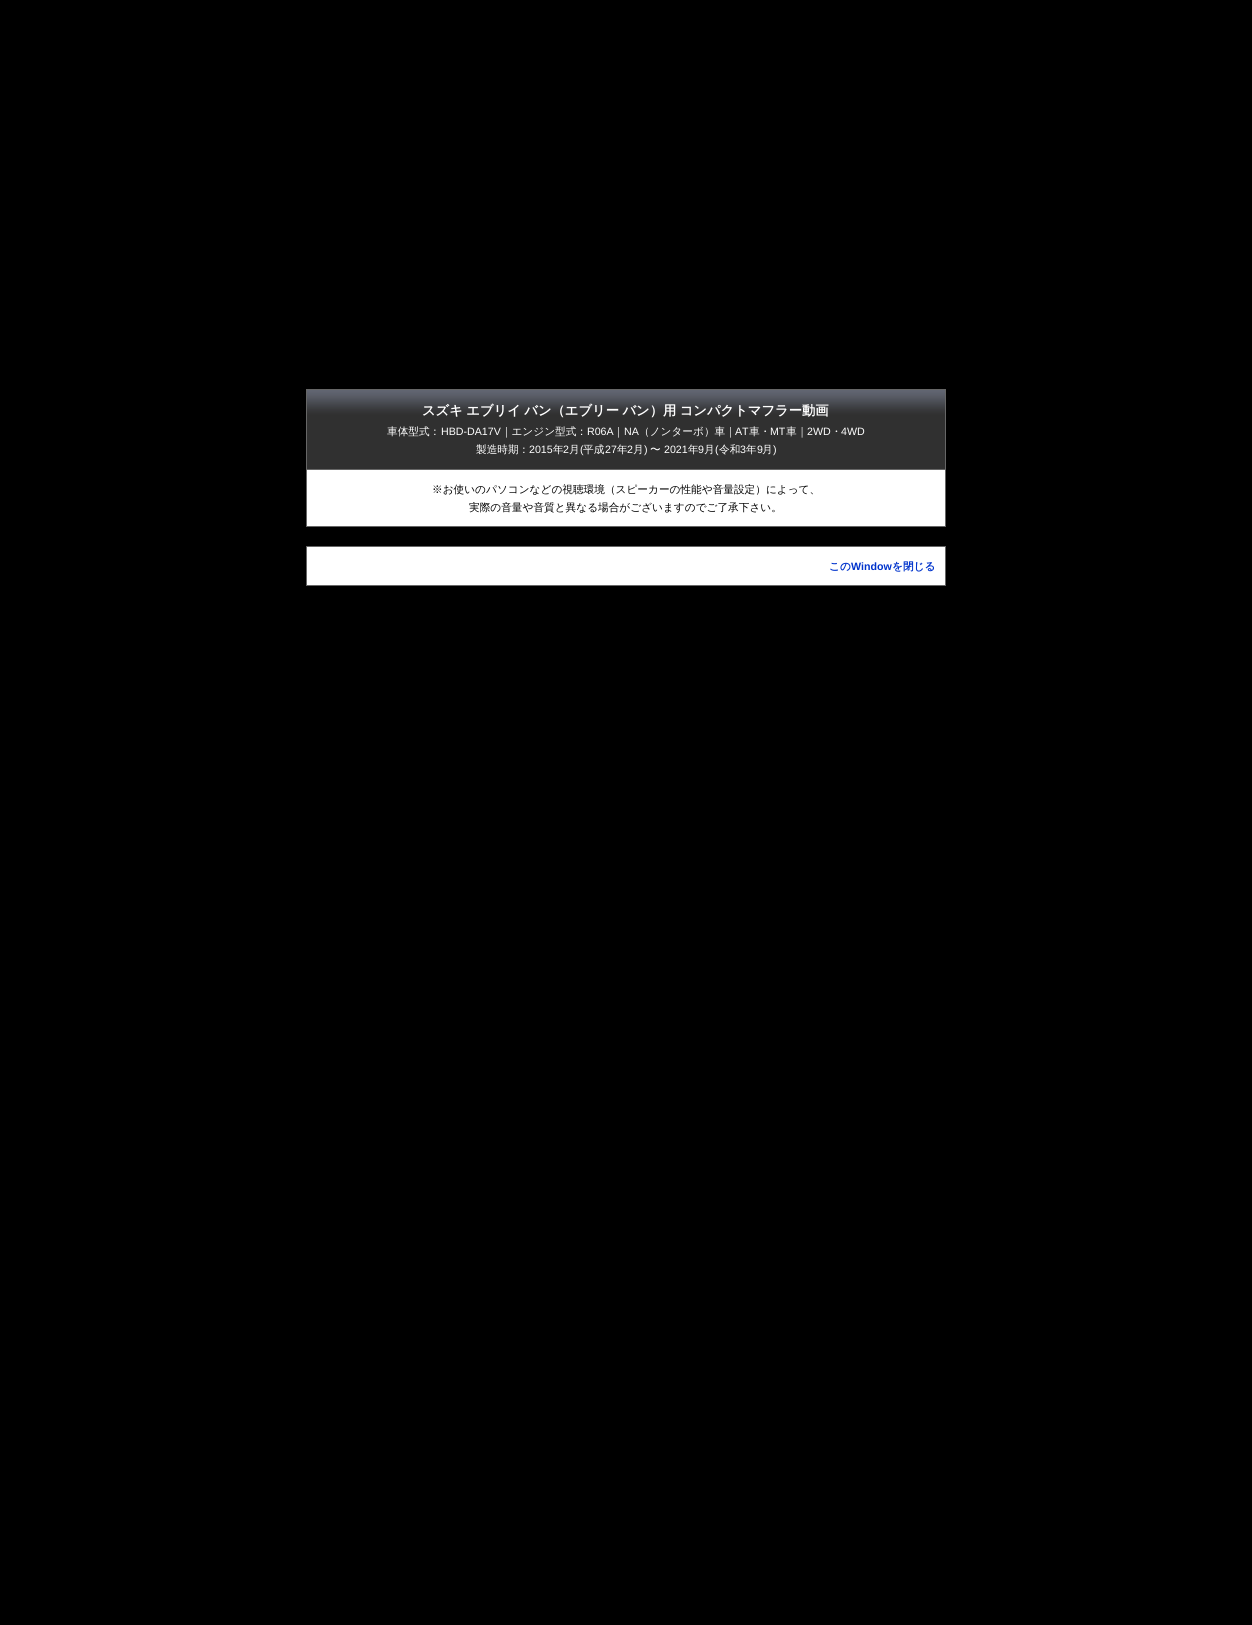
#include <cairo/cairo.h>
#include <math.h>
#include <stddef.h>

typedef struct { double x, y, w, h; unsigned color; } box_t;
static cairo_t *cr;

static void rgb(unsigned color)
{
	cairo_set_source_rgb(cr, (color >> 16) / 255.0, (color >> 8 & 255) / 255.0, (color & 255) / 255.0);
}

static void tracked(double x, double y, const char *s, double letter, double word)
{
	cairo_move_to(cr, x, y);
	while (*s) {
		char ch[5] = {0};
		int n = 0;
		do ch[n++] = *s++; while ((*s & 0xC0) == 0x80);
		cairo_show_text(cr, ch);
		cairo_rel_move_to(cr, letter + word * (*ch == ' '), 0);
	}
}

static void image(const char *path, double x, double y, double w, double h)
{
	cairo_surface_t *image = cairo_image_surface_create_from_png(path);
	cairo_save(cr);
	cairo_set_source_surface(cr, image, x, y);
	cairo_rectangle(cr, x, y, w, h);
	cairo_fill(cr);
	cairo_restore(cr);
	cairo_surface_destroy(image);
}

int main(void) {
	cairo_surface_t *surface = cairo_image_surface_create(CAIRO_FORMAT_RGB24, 1252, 1625);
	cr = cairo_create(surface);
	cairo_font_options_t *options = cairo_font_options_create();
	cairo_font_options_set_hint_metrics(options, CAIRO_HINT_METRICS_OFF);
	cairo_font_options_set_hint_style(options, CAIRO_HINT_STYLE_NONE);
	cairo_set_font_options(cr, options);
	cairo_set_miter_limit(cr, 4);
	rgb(0x000000);
	cairo_paint(cr);
	rgb(0x666666);
	cairo_rectangle(cr, 306, 389, 640, 138);
	cairo_fill(cr);
	image("img/1.png", 307, 390, 638, 79);
	{
		static const box_t items[] = {
			{307, 470, 638, 56, 0xffffff},
			{306, 546, 640, 40, 0x666666},
			{307, 547, 638, 38, 0xffffff},
		};
		for (size_t i = 0; i < sizeof items / sizeof *items; i++) {
			rgb(items[i].color);
			cairo_rectangle(cr, items[i].x, items[i].y, items[i].w, items[i].h);
			cairo_fill(cr);
		}
	}
	cairo_select_font_face(cr, "WenQuanYi Zen Hei", CAIRO_FONT_SLANT_NORMAL, CAIRO_FONT_WEIGHT_BOLD);
	cairo_set_font_size(cr, 13.3);
	tracked(422, 415, "スズキ エブリイ バン（エブリー バン）用 コンパクトマフラー動画", 0, -0.5);
	cairo_select_font_face(cr, "WenQuanYi Zen Hei Medium", CAIRO_FONT_SLANT_NORMAL, CAIRO_FONT_WEIGHT_NORMAL);
	cairo_set_font_size(cr, 10.65);
	cairo_move_to(cr, 387, 435);
	cairo_show_text(cr, "車体型式：");
	cairo_select_font_face(cr, "Liberation Sans", CAIRO_FONT_SLANT_NORMAL, CAIRO_FONT_WEIGHT_NORMAL);
	cairo_move_to(cr, 441, 435);
	cairo_show_text(cr, "HBD-DA17V");
	cairo_select_font_face(cr, "WenQuanYi Zen Hei Medium", CAIRO_FONT_SLANT_NORMAL, CAIRO_FONT_WEIGHT_NORMAL);
	cairo_move_to(cr, 501, 435);
	cairo_show_text(cr, "｜エンジン型式：");
	cairo_select_font_face(cr, "Liberation Sans", CAIRO_FONT_SLANT_NORMAL, CAIRO_FONT_WEIGHT_NORMAL);
	cairo_move_to(cr, 587, 435);
	cairo_show_text(cr, "R06A");
	cairo_select_font_face(cr, "WenQuanYi Zen Hei Medium", CAIRO_FONT_SLANT_NORMAL, CAIRO_FONT_WEIGHT_NORMAL);
	cairo_move_to(cr, 613, 435);
	cairo_show_text(cr, "｜");
	cairo_select_font_face(cr, "Liberation Sans", CAIRO_FONT_SLANT_NORMAL, CAIRO_FONT_WEIGHT_NORMAL);
	cairo_move_to(cr, 624, 435);
	cairo_show_text(cr, "NA");
	cairo_select_font_face(cr, "WenQuanYi Zen Hei Medium", CAIRO_FONT_SLANT_NORMAL, CAIRO_FONT_WEIGHT_NORMAL);
	cairo_move_to(cr, 639, 435);
	cairo_show_text(cr, "（ノンターボ）車｜");
	cairo_select_font_face(cr, "Liberation Sans", CAIRO_FONT_SLANT_NORMAL, CAIRO_FONT_WEIGHT_NORMAL);
	cairo_move_to(cr, 735, 435);
	cairo_show_text(cr, "AT");
	cairo_select_font_face(cr, "WenQuanYi Zen Hei Medium", CAIRO_FONT_SLANT_NORMAL, CAIRO_FONT_WEIGHT_NORMAL);
	cairo_move_to(cr, 749, 435);
	cairo_show_text(cr, "車・");
	cairo_select_font_face(cr, "Liberation Sans", CAIRO_FONT_SLANT_NORMAL, CAIRO_FONT_WEIGHT_NORMAL);
	cairo_move_to(cr, 770, 435);
	cairo_show_text(cr, "MT");
	cairo_select_font_face(cr, "WenQuanYi Zen Hei Medium", CAIRO_FONT_SLANT_NORMAL, CAIRO_FONT_WEIGHT_NORMAL);
	cairo_move_to(cr, 786, 435);
	cairo_show_text(cr, "車｜");
	cairo_select_font_face(cr, "Liberation Sans", CAIRO_FONT_SLANT_NORMAL, CAIRO_FONT_WEIGHT_NORMAL);
	cairo_move_to(cr, 807, 435);
	cairo_show_text(cr, "2WD");
	cairo_select_font_face(cr, "WenQuanYi Zen Hei Medium", CAIRO_FONT_SLANT_NORMAL, CAIRO_FONT_WEIGHT_NORMAL);
	cairo_move_to(cr, 831, 435);
	cairo_show_text(cr, "・");
	cairo_select_font_face(cr, "Liberation Sans", CAIRO_FONT_SLANT_NORMAL, CAIRO_FONT_WEIGHT_NORMAL);
	cairo_move_to(cr, 841, 435);
	cairo_show_text(cr, "4WD");
	cairo_select_font_face(cr, "WenQuanYi Zen Hei Medium", CAIRO_FONT_SLANT_NORMAL, CAIRO_FONT_WEIGHT_NORMAL);
	cairo_move_to(cr, 476, 453);
	cairo_show_text(cr, "製造時期：");
	cairo_select_font_face(cr, "Liberation Sans", CAIRO_FONT_SLANT_NORMAL, CAIRO_FONT_WEIGHT_NORMAL);
	cairo_move_to(cr, 529, 453);
	cairo_show_text(cr, "2015");
	cairo_select_font_face(cr, "WenQuanYi Zen Hei Medium", CAIRO_FONT_SLANT_NORMAL, CAIRO_FONT_WEIGHT_NORMAL);
	cairo_move_to(cr, 553, 453);
	cairo_show_text(cr, "年");
	cairo_select_font_face(cr, "Liberation Sans", CAIRO_FONT_SLANT_NORMAL, CAIRO_FONT_WEIGHT_NORMAL);
	cairo_move_to(cr, 563, 453);
	cairo_show_text(cr, "2");
	cairo_select_font_face(cr, "WenQuanYi Zen Hei Medium", CAIRO_FONT_SLANT_NORMAL, CAIRO_FONT_WEIGHT_NORMAL);
	cairo_move_to(cr, 569, 453);
	cairo_show_text(cr, "月");
	cairo_select_font_face(cr, "Liberation Sans", CAIRO_FONT_SLANT_NORMAL, CAIRO_FONT_WEIGHT_NORMAL);
	cairo_move_to(cr, 580, 453);
	cairo_show_text(cr, "(");
	cairo_select_font_face(cr, "WenQuanYi Zen Hei Medium", CAIRO_FONT_SLANT_NORMAL, CAIRO_FONT_WEIGHT_NORMAL);
	cairo_move_to(cr, 583, 453);
	cairo_show_text(cr, "平成");
	cairo_select_font_face(cr, "Liberation Sans", CAIRO_FONT_SLANT_NORMAL, CAIRO_FONT_WEIGHT_NORMAL);
	cairo_move_to(cr, 605, 453);
	cairo_show_text(cr, "27");
	cairo_select_font_face(cr, "WenQuanYi Zen Hei Medium", CAIRO_FONT_SLANT_NORMAL, CAIRO_FONT_WEIGHT_NORMAL);
	cairo_move_to(cr, 617, 453);
	cairo_show_text(cr, "年");
	cairo_select_font_face(cr, "Liberation Sans", CAIRO_FONT_SLANT_NORMAL, CAIRO_FONT_WEIGHT_NORMAL);
	cairo_move_to(cr, 627, 453);
	cairo_show_text(cr, "2");
	cairo_select_font_face(cr, "WenQuanYi Zen Hei Medium", CAIRO_FONT_SLANT_NORMAL, CAIRO_FONT_WEIGHT_NORMAL);
	cairo_move_to(cr, 633, 453);
	cairo_show_text(cr, "月");
	cairo_select_font_face(cr, "Liberation Sans", CAIRO_FONT_SLANT_NORMAL, CAIRO_FONT_WEIGHT_NORMAL);
	cairo_move_to(cr, 644, 453);
	cairo_show_text(cr, ")");
	cairo_select_font_face(cr, "WenQuanYi Zen Hei Medium", CAIRO_FONT_SLANT_NORMAL, CAIRO_FONT_WEIGHT_NORMAL);
	cairo_move_to(cr, 650, 453);
	cairo_show_text(cr, "〜");
	cairo_select_font_face(cr, "Liberation Sans", CAIRO_FONT_SLANT_NORMAL, CAIRO_FONT_WEIGHT_NORMAL);
	cairo_move_to(cr, 664, 453);
	cairo_show_text(cr, "2021");
	cairo_select_font_face(cr, "WenQuanYi Zen Hei Medium", CAIRO_FONT_SLANT_NORMAL, CAIRO_FONT_WEIGHT_NORMAL);
	cairo_move_to(cr, 688, 453);
	cairo_show_text(cr, "年");
	cairo_select_font_face(cr, "Liberation Sans", CAIRO_FONT_SLANT_NORMAL, CAIRO_FONT_WEIGHT_NORMAL);
	cairo_move_to(cr, 698, 453);
	cairo_show_text(cr, "9");
	cairo_select_font_face(cr, "WenQuanYi Zen Hei Medium", CAIRO_FONT_SLANT_NORMAL, CAIRO_FONT_WEIGHT_NORMAL);
	cairo_move_to(cr, 704, 453);
	cairo_show_text(cr, "月");
	cairo_select_font_face(cr, "Liberation Sans", CAIRO_FONT_SLANT_NORMAL, CAIRO_FONT_WEIGHT_NORMAL);
	cairo_move_to(cr, 715, 453);
	cairo_show_text(cr, "(");
	cairo_select_font_face(cr, "WenQuanYi Zen Hei Medium", CAIRO_FONT_SLANT_NORMAL, CAIRO_FONT_WEIGHT_NORMAL);
	cairo_move_to(cr, 719, 453);
	cairo_show_text(cr, "令和");
	cairo_select_font_face(cr, "Liberation Sans", CAIRO_FONT_SLANT_NORMAL, CAIRO_FONT_WEIGHT_NORMAL);
	cairo_move_to(cr, 740, 453);
	cairo_show_text(cr, "3");
	cairo_select_font_face(cr, "WenQuanYi Zen Hei Medium", CAIRO_FONT_SLANT_NORMAL, CAIRO_FONT_WEIGHT_NORMAL);
	cairo_move_to(cr, 746, 453);
	cairo_show_text(cr, "年");
	cairo_select_font_face(cr, "Liberation Sans", CAIRO_FONT_SLANT_NORMAL, CAIRO_FONT_WEIGHT_NORMAL);
	cairo_move_to(cr, 757, 453);
	cairo_show_text(cr, "9");
	cairo_select_font_face(cr, "WenQuanYi Zen Hei Medium", CAIRO_FONT_SLANT_NORMAL, CAIRO_FONT_WEIGHT_NORMAL);
	cairo_move_to(cr, 762, 453);
	cairo_show_text(cr, "月");
	cairo_select_font_face(cr, "Liberation Sans", CAIRO_FONT_SLANT_NORMAL, CAIRO_FONT_WEIGHT_NORMAL);
	cairo_move_to(cr, 773, 453);
	cairo_show_text(cr, ")");
	cairo_select_font_face(cr, "WenQuanYi Zen Hei Medium", CAIRO_FONT_SLANT_NORMAL, CAIRO_FONT_WEIGHT_NORMAL);
	rgb(0x000000);
	cairo_move_to(cr, 432, 493);
	cairo_show_text(cr, "※お使いのパソコンなどの視聴環境（スピーカーの性能や音量設定）によって、");
	cairo_move_to(cr, 469, 511);
	cairo_show_text(cr, "実際の音量や音質と異なる場合がございますのでご了承下さい。");
	cairo_select_font_face(cr, "WenQuanYi Zen Hei", CAIRO_FONT_SLANT_NORMAL, CAIRO_FONT_WEIGHT_BOLD);
	rgb(0x0033cc);
	cairo_move_to(cr, 829, 570);
	cairo_show_text(cr, "この");
	cairo_select_font_face(cr, "Liberation Sans", CAIRO_FONT_SLANT_NORMAL, CAIRO_FONT_WEIGHT_BOLD);
	cairo_move_to(cr, 851, 570);
	cairo_show_text(cr, "Window");
	cairo_select_font_face(cr, "WenQuanYi Zen Hei", CAIRO_FONT_SLANT_NORMAL, CAIRO_FONT_WEIGHT_BOLD);
	cairo_move_to(cr, 892, 570);
	cairo_show_text(cr, "を閉じる");
	cairo_surface_write_to_png(surface, "page.png");
	cairo_font_options_destroy(options);
	cairo_destroy(cr);
	cairo_surface_destroy(surface);
	return 0;
}
